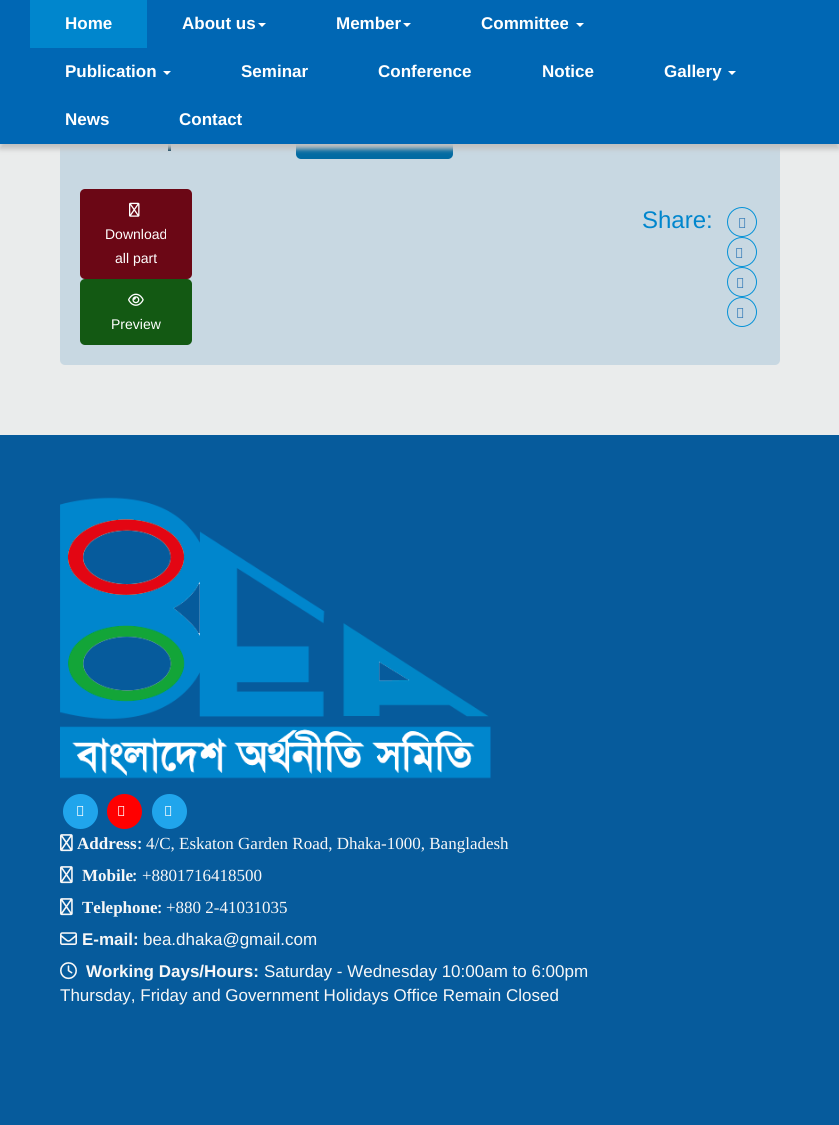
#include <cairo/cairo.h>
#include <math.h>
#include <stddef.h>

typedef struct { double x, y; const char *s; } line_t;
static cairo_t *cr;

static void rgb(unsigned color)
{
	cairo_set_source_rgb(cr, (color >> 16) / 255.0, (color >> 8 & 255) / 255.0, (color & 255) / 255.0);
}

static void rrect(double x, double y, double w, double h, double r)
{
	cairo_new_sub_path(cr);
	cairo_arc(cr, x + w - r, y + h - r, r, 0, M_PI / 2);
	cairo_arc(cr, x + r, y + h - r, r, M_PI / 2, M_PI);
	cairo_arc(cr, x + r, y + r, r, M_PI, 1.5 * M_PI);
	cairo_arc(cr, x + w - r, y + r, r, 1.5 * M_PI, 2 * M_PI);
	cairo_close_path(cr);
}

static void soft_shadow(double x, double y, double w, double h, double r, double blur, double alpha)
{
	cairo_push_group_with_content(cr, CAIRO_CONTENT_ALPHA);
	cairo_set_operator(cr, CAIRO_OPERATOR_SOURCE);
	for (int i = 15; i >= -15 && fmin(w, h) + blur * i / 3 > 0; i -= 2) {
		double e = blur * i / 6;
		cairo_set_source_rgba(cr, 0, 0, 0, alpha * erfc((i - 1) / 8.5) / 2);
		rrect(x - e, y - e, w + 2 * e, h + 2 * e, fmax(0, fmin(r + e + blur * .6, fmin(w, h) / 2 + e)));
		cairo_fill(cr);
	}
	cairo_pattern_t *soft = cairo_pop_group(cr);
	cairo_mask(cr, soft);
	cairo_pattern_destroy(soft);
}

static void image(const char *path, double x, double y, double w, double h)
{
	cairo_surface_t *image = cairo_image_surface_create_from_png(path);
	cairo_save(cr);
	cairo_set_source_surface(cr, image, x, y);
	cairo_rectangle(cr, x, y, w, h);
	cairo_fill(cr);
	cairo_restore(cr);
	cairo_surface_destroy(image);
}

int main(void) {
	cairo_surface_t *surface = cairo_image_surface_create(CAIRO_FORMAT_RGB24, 839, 1125);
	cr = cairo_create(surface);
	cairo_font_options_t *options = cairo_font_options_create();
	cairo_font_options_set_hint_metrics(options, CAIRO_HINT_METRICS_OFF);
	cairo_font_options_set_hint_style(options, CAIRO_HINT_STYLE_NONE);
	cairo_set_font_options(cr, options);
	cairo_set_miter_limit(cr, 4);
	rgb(0xeaecec);
	cairo_paint(cr);
	rgb(0xc8d8e2);
	rrect(60, 65, 720, 300, 5);
	cairo_fill(cr);
	rgb(0x003652);
	cairo_rectangle(cr, 168, 144, 3, 7);
	cairo_fill(cr);
	rgb(0x016aa2);
	rrect(296, 125, 157, 34, 5);
	cairo_fill(cr);
	rgb(0xc1c1c1);
	soft_shadow(0, 5, 839, 144, 0, 2.5, 1);
	rgb(0x0067b4);
	cairo_rectangle(cr, 0, 0, 839, 144);
	cairo_fill(cr);
	rgb(0x0086cd);
	cairo_rectangle(cr, 30, 0, 117, 48);
	cairo_fill(cr);
	rgb(0xffffff);
	cairo_new_path(cr);
	cairo_move_to(cr, 258, 23);
	cairo_line_to(cr, 266, 23);
	cairo_line_to(cr, 262, 27);
	cairo_close_path(cr);
	cairo_fill(cr);
	cairo_new_path(cr);
	cairo_move_to(cr, 403, 23);
	cairo_line_to(cr, 411, 23);
	cairo_line_to(cr, 407, 27);
	cairo_close_path(cr);
	cairo_fill(cr);
	cairo_new_path(cr);
	cairo_move_to(cr, 576, 23);
	cairo_line_to(cr, 584, 23);
	cairo_line_to(cr, 580, 27);
	cairo_close_path(cr);
	cairo_fill(cr);
	cairo_new_path(cr);
	cairo_move_to(cr, 163, 71);
	cairo_line_to(cr, 171, 71);
	cairo_line_to(cr, 167, 75);
	cairo_close_path(cr);
	cairo_fill(cr);
	cairo_new_path(cr);
	cairo_move_to(cr, 728, 71);
	cairo_line_to(cr, 736, 71);
	cairo_line_to(cr, 732, 75);
	cairo_close_path(cr);
	cairo_fill(cr);
	cairo_arc(cr, 742, 222, 14.5, 0, 2 * M_PI);
	rgb(0x0592d7);
	cairo_set_line_width(cr, 1);
	cairo_stroke(cr);
	image("img/1.png", 739, 218, 7, 10);
	cairo_arc(cr, 742, 252, 14.5, 0, 2 * M_PI);
	cairo_stroke(cr);
	image("img/1.png", 736, 248, 7, 10);
	cairo_arc(cr, 742, 282, 14.5, 0, 2 * M_PI);
	cairo_stroke(cr);
	image("img/1.png", 737, 278, 7, 10);
	cairo_arc(cr, 742, 312, 14.5, 0, 2 * M_PI);
	cairo_stroke(cr);
	image("img/1.png", 737, 308, 7, 10);
	rgb(0x6b0715);
	rrect(80, 189, 112, 90, 5);
	cairo_fill(cr);
	image("img/2.png", 129, 202, 11, 15);
	rgb(0x135913);
	rrect(80, 279, 112, 66, 5);
	cairo_fill(cr);
	image("img/3.png", 128, 293, 16, 13);
	rgb(0x065b9c);
	cairo_rectangle(cr, 0, 435, 839, 690);
	cairo_fill(cr);
	image("img/4.png", 60, 497, 431, 282);
	rgb(0x20a5ec);
	cairo_arc(cr, 80.5, 811.5, 17.5, 0, 2 * M_PI);
	cairo_fill(cr);
	image("img/5.png", 77, 806, 7, 10);
	rgb(0xff0000);
	cairo_arc(cr, 124.5, 811.5, 17.5, 0, 2 * M_PI);
	cairo_fill(cr);
	image("img/6.png", 118, 806, 7, 10);
	rgb(0x20a5ec);
	cairo_arc(cr, 169.5, 811.5, 17.5, 0, 2 * M_PI);
	cairo_fill(cr);
	image("img/5.png", 165, 806, 7, 10);
	image("img/7.png", 60, 834, 13, 18);
	image("img/7.png", 60, 866, 13, 18);
	image("img/7.png", 60, 898, 13, 18);
	image("img/8.png", 60, 932, 17, 13);
	image("img/9.png", 60, 962, 17, 18);
	cairo_select_font_face(cr, "Liberation Sans", CAIRO_FONT_SLANT_NORMAL, CAIRO_FONT_WEIGHT_BOLD);
	cairo_set_font_size(cr, 17);
	rgb(0xffffff);
	{
		static const line_t items[] = {
			{65, 29, "Home"},
			{182, 29, "About us"},
			{336, 29, "Member"},
			{481, 29, "Committee"},
			{65, 77, "Publication"},
			{241, 77, "Seminar"},
			{378, 77, "Conference"},
			{542, 77, "Notice"},
			{664, 77, "Gallery"},
			{65, 125, "News"},
			{179, 125, "Contact"},
		};
		for (size_t i = 0; i < sizeof items / sizeof *items; i++) {
			cairo_move_to(cr, items[i].x, items[i].y);
			cairo_show_text(cr, items[i].s);
		}
	}
	cairo_select_font_face(cr, "Liberation Sans", CAIRO_FONT_SLANT_NORMAL, CAIRO_FONT_WEIGHT_NORMAL);
	cairo_set_font_size(cr, 24);
	rgb(0x0086cd);
	cairo_move_to(cr, 642, 228);
	cairo_show_text(cr, "Share:");
	cairo_set_font_size(cr, 14);
	rgb(0xffffff);
	{
		static const line_t items[] = {
			{105, 239, "Download"},
			{115, 263, "all part"},
			{111, 329, "Preview"},
		};
		for (size_t i = 0; i < sizeof items / sizeof *items; i++) {
			cairo_move_to(cr, items[i].x, items[i].y);
			cairo_show_text(cr, items[i].s);
		}
	}
	cairo_select_font_face(cr, "Liberation Serif", CAIRO_FONT_SLANT_NORMAL, CAIRO_FONT_WEIGHT_BOLD);
	cairo_set_font_size(cr, 17);
	rgb(0xf7f7f7);
	cairo_move_to(cr, 77, 849);
	cairo_show_text(cr, "Address");
	cairo_select_font_face(cr, "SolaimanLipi", CAIRO_FONT_SLANT_NORMAL, CAIRO_FONT_WEIGHT_BOLD);
	cairo_move_to(cr, 137, 849);
	cairo_show_text(cr, ":");
	cairo_select_font_face(cr, "Liberation Serif", CAIRO_FONT_SLANT_NORMAL, CAIRO_FONT_WEIGHT_NORMAL);
	cairo_move_to(cr, 146, 849);
	cairo_show_text(cr, "4/C, Eskaton Garden Road, Dhaka-1000, Bangladesh");
	cairo_select_font_face(cr, "Liberation Serif", CAIRO_FONT_SLANT_NORMAL, CAIRO_FONT_WEIGHT_BOLD);
	cairo_move_to(cr, 82, 881);
	cairo_show_text(cr, "Mobile");
	cairo_select_font_face(cr, "SolaimanLipi", CAIRO_FONT_SLANT_NORMAL, CAIRO_FONT_WEIGHT_BOLD);
	cairo_move_to(cr, 132, 881);
	cairo_show_text(cr, ":");
	cairo_select_font_face(cr, "Liberation Serif", CAIRO_FONT_SLANT_NORMAL, CAIRO_FONT_WEIGHT_NORMAL);
	cairo_move_to(cr, 142, 881);
	cairo_show_text(cr, "+8801716418500");
	cairo_select_font_face(cr, "Liberation Serif", CAIRO_FONT_SLANT_NORMAL, CAIRO_FONT_WEIGHT_BOLD);
	cairo_move_to(cr, 82, 913);
	cairo_show_text(cr, "Telephone");
	cairo_select_font_face(cr, "SolaimanLipi", CAIRO_FONT_SLANT_NORMAL, CAIRO_FONT_WEIGHT_BOLD);
	cairo_move_to(cr, 157, 913);
	cairo_show_text(cr, ":");
	cairo_select_font_face(cr, "Liberation Serif", CAIRO_FONT_SLANT_NORMAL, CAIRO_FONT_WEIGHT_NORMAL);
	cairo_move_to(cr, 166, 913);
	cairo_show_text(cr, "+880 2-41031035");
	cairo_select_font_face(cr, "Liberation Sans", CAIRO_FONT_SLANT_NORMAL, CAIRO_FONT_WEIGHT_BOLD);
	cairo_move_to(cr, 82, 945);
	cairo_show_text(cr, "E-mail:");
	cairo_select_font_face(cr, "Liberation Sans", CAIRO_FONT_SLANT_NORMAL, CAIRO_FONT_WEIGHT_NORMAL);
	cairo_move_to(cr, 143, 945);
	cairo_show_text(cr, "bea.dhaka@gmail.com");
	cairo_select_font_face(cr, "Liberation Sans", CAIRO_FONT_SLANT_NORMAL, CAIRO_FONT_WEIGHT_BOLD);
	cairo_move_to(cr, 86, 977);
	cairo_show_text(cr, "Working Days/Hours:");
	cairo_select_font_face(cr, "Liberation Sans", CAIRO_FONT_SLANT_NORMAL, CAIRO_FONT_WEIGHT_NORMAL);
	cairo_move_to(cr, 264, 977);
	cairo_show_text(cr, "Saturday - Wednesday 10:00am to 6:00pm");
	cairo_move_to(cr, 60, 1001);
	cairo_show_text(cr, "Thursday, Friday and Government Holidays Office Remain Closed");
	cairo_surface_write_to_png(surface, "page.png");
	cairo_font_options_destroy(options);
	cairo_destroy(cr);
	cairo_surface_destroy(surface);
	return 0;
}
